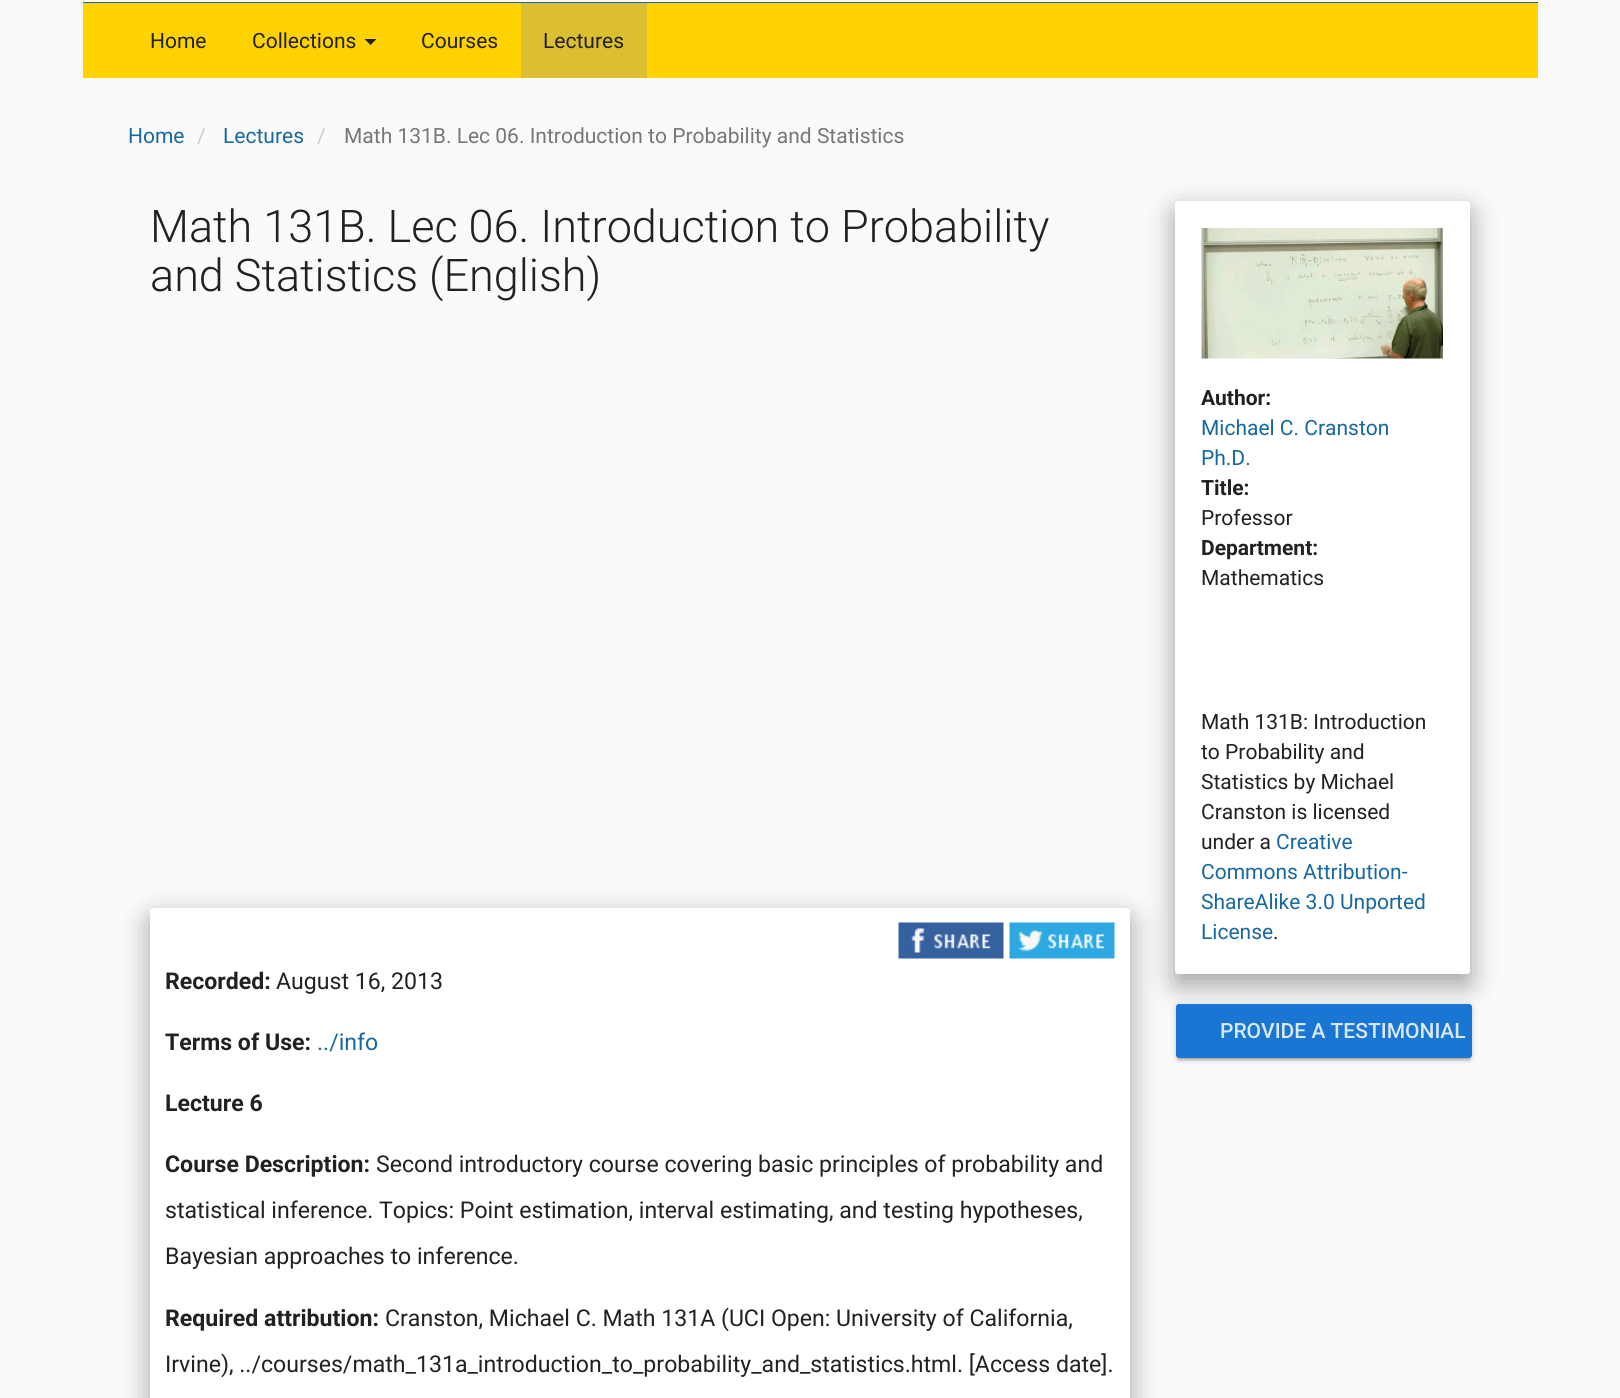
#include <cairo/cairo.h>
#include <math.h>
#include <stddef.h>

typedef struct { double x, y; const char *s; } line_t;
static cairo_t *cr;

static void rgb(unsigned color)
{
	cairo_set_source_rgb(cr, (color >> 16) / 255.0, (color >> 8 & 255) / 255.0, (color & 255) / 255.0);
}

static void rrect(double x, double y, double w, double h, double r)
{
	cairo_new_sub_path(cr);
	cairo_arc(cr, x + w - r, y + h - r, r, 0, M_PI / 2);
	cairo_arc(cr, x + r, y + h - r, r, M_PI / 2, M_PI);
	cairo_arc(cr, x + r, y + r, r, M_PI, 1.5 * M_PI);
	cairo_arc(cr, x + w - r, y + r, r, 1.5 * M_PI, 2 * M_PI);
	cairo_close_path(cr);
}

static void soft_shadow(double x, double y, double w, double h, double r, double blur, double alpha)
{
	cairo_push_group_with_content(cr, CAIRO_CONTENT_ALPHA);
	cairo_set_operator(cr, CAIRO_OPERATOR_SOURCE);
	for (int i = 15; i >= -15 && fmin(w, h) + blur * i / 3 > 0; i -= 2) {
		double e = blur * i / 6;
		cairo_set_source_rgba(cr, 0, 0, 0, alpha * erfc((i - 1) / 8.5) / 2);
		rrect(x - e, y - e, w + 2 * e, h + 2 * e, fmax(0, fmin(r + e + blur * .6, fmin(w, h) / 2 + e)));
		cairo_fill(cr);
	}
	cairo_pattern_t *soft = cairo_pop_group(cr);
	cairo_mask(cr, soft);
	cairo_pattern_destroy(soft);
}

static void image(const char *path, double x, double y, double w, double h)
{
	cairo_surface_t *image = cairo_image_surface_create_from_png(path);
	cairo_save(cr);
	cairo_set_source_surface(cr, image, x, y);
	cairo_rectangle(cr, x, y, w, h);
	cairo_fill(cr);
	cairo_restore(cr);
	cairo_surface_destroy(image);
}

int main(void) {
	cairo_surface_t *surface = cairo_image_surface_create(CAIRO_FORMAT_RGB24, 1620, 1398);
	cr = cairo_create(surface);
	cairo_font_options_t *options = cairo_font_options_create();
	cairo_font_options_set_hint_metrics(options, CAIRO_HINT_METRICS_OFF);
	cairo_font_options_set_hint_style(options, CAIRO_HINT_STYLE_NONE);
	cairo_set_font_options(cr, options);
	cairo_set_miter_limit(cr, 4);
	rgb(0xfafafa);
	cairo_paint(cr);
	rgb(0x1565c0);
	cairo_rectangle(cr, 83, 2, 1455, 1);
	cairo_fill(cr);
	rgb(0xffd200);
	cairo_rectangle(cr, 83, 3, 1455, 75);
	cairo_fill(cr);
	rgb(0x212121);
	cairo_new_path(cr);
	cairo_move_to(cr, 364.5, 39);
	cairo_line_to(cr, 376.5, 39);
	cairo_line_to(cr, 370.5, 45);
	cairo_close_path(cr);
	cairo_fill(cr);
	rgb(0xdcbe31);
	cairo_rectangle(cr, 521, 3, 126, 75);
	cairo_fill(cr);
	rgb(0x000000);
	soft_shadow(150, 917, 980, 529, 3, 15, 0.19);
	soft_shadow(150, 920, 980, 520, 3, 13, 0.2);
	rgb(0xffffff);
	rrect(150, 908, 980, 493, 3);
	cairo_fill(cr);
	image("img/1.png", 898, 922, 106, 37);
	image("img/2.png", 1009, 922, 106, 37);
	rgb(0x000000);
	soft_shadow(1175, 210, 295, 773, 3, 15, 0.19);
	soft_shadow(1175, 213, 295, 773, 3, 13, 0.2);
	rgb(0xffffff);
	rrect(1175, 201, 295, 773, 3);
	cairo_fill(cr);
	image("img/3.png", 1201, 228, 242, 131);
	rgb(0x000000);
	soft_shadow(1176, 1005, 296, 54, 3, 4, 0.12);
	soft_shadow(1179, 1011, 290, 48, 0, 1, 0.2);
	soft_shadow(1176, 1007, 296, 54, 3, 1.5, 0.14);
	rgb(0x1976d2);
	rrect(1176, 1004, 296, 54, 3);
	cairo_fill(cr);
	cairo_select_font_face(cr, "Roboto", CAIRO_FONT_SLANT_NORMAL, CAIRO_FONT_WEIGHT_NORMAL);
	cairo_set_font_size(cr, 21);
	rgb(0x212121);
	{
		static const line_t items[] = {
			{150, 48, "Home"},
			{252, 48, "Collections"},
			{421, 48, "Courses"},
			{543, 48, "Lectures"},
		};
		for (size_t i = 0; i < sizeof items / sizeof *items; i++) {
			cairo_move_to(cr, items[i].x, items[i].y);
			cairo_show_text(cr, items[i].s);
		}
	}
	rgb(0x16689f);
	cairo_move_to(cr, 128, 143);
	cairo_show_text(cr, "Home");
	rgb(0xcccccc);
	cairo_move_to(cr, 197, 143);
	cairo_show_text(cr, "/");
	rgb(0x16689f);
	cairo_move_to(cr, 223, 143);
	cairo_show_text(cr, "Lectures");
	rgb(0xcccccc);
	cairo_move_to(cr, 317, 143);
	cairo_show_text(cr, "/");
	rgb(0x777777);
	cairo_move_to(cr, 344, 143);
	cairo_show_text(cr, "Math 131B. Lec 06. Introduction to Probability and Statistics");
	cairo_select_font_face(cr, "Roboto Light", CAIRO_FONT_SLANT_NORMAL, CAIRO_FONT_WEIGHT_NORMAL);
	cairo_set_font_size(cr, 45);
	rgb(0x212121);
	cairo_move_to(cr, 150, 242);
	cairo_show_text(cr, "Math 131B. Lec 06. Introduction to Probability");
	cairo_move_to(cr, 150, 291);
	cairo_show_text(cr, "and Statistics (English)");
	cairo_select_font_face(cr, "Roboto", CAIRO_FONT_SLANT_NORMAL, CAIRO_FONT_WEIGHT_BOLD);
	cairo_set_font_size(cr, 23.1);
	cairo_move_to(cr, 165, 989);
	cairo_show_text(cr, "Recorded:");
	cairo_select_font_face(cr, "Roboto", CAIRO_FONT_SLANT_NORMAL, CAIRO_FONT_WEIGHT_NORMAL);
	cairo_move_to(cr, 276, 989);
	cairo_show_text(cr, "August 16, 2013");
	cairo_select_font_face(cr, "Roboto", CAIRO_FONT_SLANT_NORMAL, CAIRO_FONT_WEIGHT_BOLD);
	cairo_move_to(cr, 165, 1050);
	cairo_show_text(cr, "Terms of Use:");
	cairo_select_font_face(cr, "Roboto", CAIRO_FONT_SLANT_NORMAL, CAIRO_FONT_WEIGHT_NORMAL);
	rgb(0x16689f);
	cairo_move_to(cr, 317, 1050);
	cairo_show_text(cr, "../info");
	cairo_select_font_face(cr, "Roboto", CAIRO_FONT_SLANT_NORMAL, CAIRO_FONT_WEIGHT_BOLD);
	rgb(0x212121);
	cairo_move_to(cr, 165, 1111);
	cairo_show_text(cr, "Lecture 6");
	cairo_move_to(cr, 165, 1172);
	cairo_show_text(cr, "Course Description:");
	cairo_select_font_face(cr, "Roboto", CAIRO_FONT_SLANT_NORMAL, CAIRO_FONT_WEIGHT_NORMAL);
	{
		static const line_t items[] = {
			{376, 1172, "Second introductory course covering basic principles of probability and"},
			{165, 1218, "statistical inference. Topics: Point estimation, interval estimating, and testing hypotheses,"},
			{165, 1264, "Bayesian approaches to inference."},
		};
		for (size_t i = 0; i < sizeof items / sizeof *items; i++) {
			cairo_move_to(cr, items[i].x, items[i].y);
			cairo_show_text(cr, items[i].s);
		}
	}
	cairo_select_font_face(cr, "Roboto", CAIRO_FONT_SLANT_NORMAL, CAIRO_FONT_WEIGHT_BOLD);
	cairo_move_to(cr, 165, 1326);
	cairo_show_text(cr, "Required attribution:");
	cairo_select_font_face(cr, "Roboto", CAIRO_FONT_SLANT_NORMAL, CAIRO_FONT_WEIGHT_NORMAL);
	cairo_move_to(cr, 385, 1326);
	cairo_show_text(cr, "Cranston, Michael C. Math 131A (UCI Open: University of California,");
	cairo_move_to(cr, 165, 1372);
	cairo_show_text(cr, "Irvine), ../courses/math_131a_introduction_to_probability_and_statistics.html. [Access date].");
	cairo_select_font_face(cr, "Roboto", CAIRO_FONT_SLANT_NORMAL, CAIRO_FONT_WEIGHT_BOLD);
	cairo_set_font_size(cr, 21);
	cairo_move_to(cr, 1201, 405);
	cairo_show_text(cr, "Author:");
	cairo_select_font_face(cr, "Roboto", CAIRO_FONT_SLANT_NORMAL, CAIRO_FONT_WEIGHT_NORMAL);
	rgb(0x16689f);
	cairo_move_to(cr, 1201, 435);
	cairo_show_text(cr, "Michael C. Cranston");
	cairo_move_to(cr, 1201, 465);
	cairo_show_text(cr, "Ph.D.");
	cairo_select_font_face(cr, "Roboto", CAIRO_FONT_SLANT_NORMAL, CAIRO_FONT_WEIGHT_BOLD);
	rgb(0x212121);
	cairo_move_to(cr, 1201, 495);
	cairo_show_text(cr, "Title:");
	cairo_select_font_face(cr, "Roboto", CAIRO_FONT_SLANT_NORMAL, CAIRO_FONT_WEIGHT_NORMAL);
	cairo_move_to(cr, 1201, 525);
	cairo_show_text(cr, "Professor");
	cairo_select_font_face(cr, "Roboto", CAIRO_FONT_SLANT_NORMAL, CAIRO_FONT_WEIGHT_BOLD);
	cairo_move_to(cr, 1201, 555);
	cairo_show_text(cr, "Department:");
	cairo_select_font_face(cr, "Roboto", CAIRO_FONT_SLANT_NORMAL, CAIRO_FONT_WEIGHT_NORMAL);
	{
		static const line_t items[] = {
			{1201, 585, "Mathematics"},
			{1201, 729, "Math 131B: Introduction"},
			{1201, 759, "to Probability and"},
			{1201, 789, "Statistics by Michael"},
			{1201, 819, "Cranston is licensed"},
			{1201, 849, "under a"},
		};
		for (size_t i = 0; i < sizeof items / sizeof *items; i++) {
			cairo_move_to(cr, items[i].x, items[i].y);
			cairo_show_text(cr, items[i].s);
		}
	}
	rgb(0x16689f);
	{
		static const line_t items[] = {
			{1276, 849, "Creative"},
			{1201, 879, "Commons Attribution-"},
			{1201, 909, "ShareAlike 3.0 Unported"},
			{1201, 939, "License"},
		};
		for (size_t i = 0; i < sizeof items / sizeof *items; i++) {
			cairo_move_to(cr, items[i].x, items[i].y);
			cairo_show_text(cr, items[i].s);
		}
	}
	rgb(0x212121);
	cairo_move_to(cr, 1273, 939);
	cairo_show_text(cr, ".");
	cairo_select_font_face(cr, "Roboto Medium", CAIRO_FONT_SLANT_NORMAL, CAIRO_FONT_WEIGHT_NORMAL);
	rgb(0xdae9f8);
	cairo_move_to(cr, 1220, 1038);
	cairo_show_text(cr, "PROVIDE A TESTIMONIAL");
	cairo_surface_write_to_png(surface, "page.png");
	cairo_font_options_destroy(options);
	cairo_destroy(cr);
	cairo_surface_destroy(surface);
	return 0;
}
